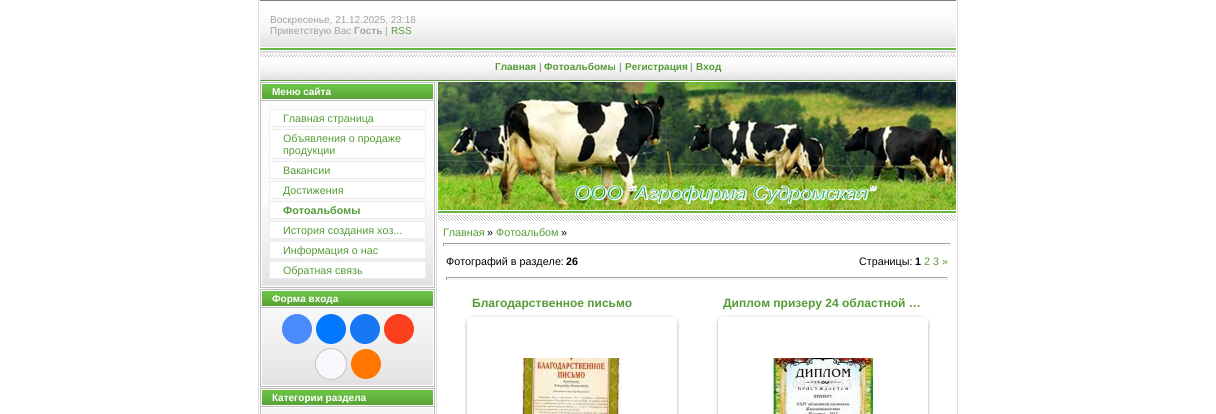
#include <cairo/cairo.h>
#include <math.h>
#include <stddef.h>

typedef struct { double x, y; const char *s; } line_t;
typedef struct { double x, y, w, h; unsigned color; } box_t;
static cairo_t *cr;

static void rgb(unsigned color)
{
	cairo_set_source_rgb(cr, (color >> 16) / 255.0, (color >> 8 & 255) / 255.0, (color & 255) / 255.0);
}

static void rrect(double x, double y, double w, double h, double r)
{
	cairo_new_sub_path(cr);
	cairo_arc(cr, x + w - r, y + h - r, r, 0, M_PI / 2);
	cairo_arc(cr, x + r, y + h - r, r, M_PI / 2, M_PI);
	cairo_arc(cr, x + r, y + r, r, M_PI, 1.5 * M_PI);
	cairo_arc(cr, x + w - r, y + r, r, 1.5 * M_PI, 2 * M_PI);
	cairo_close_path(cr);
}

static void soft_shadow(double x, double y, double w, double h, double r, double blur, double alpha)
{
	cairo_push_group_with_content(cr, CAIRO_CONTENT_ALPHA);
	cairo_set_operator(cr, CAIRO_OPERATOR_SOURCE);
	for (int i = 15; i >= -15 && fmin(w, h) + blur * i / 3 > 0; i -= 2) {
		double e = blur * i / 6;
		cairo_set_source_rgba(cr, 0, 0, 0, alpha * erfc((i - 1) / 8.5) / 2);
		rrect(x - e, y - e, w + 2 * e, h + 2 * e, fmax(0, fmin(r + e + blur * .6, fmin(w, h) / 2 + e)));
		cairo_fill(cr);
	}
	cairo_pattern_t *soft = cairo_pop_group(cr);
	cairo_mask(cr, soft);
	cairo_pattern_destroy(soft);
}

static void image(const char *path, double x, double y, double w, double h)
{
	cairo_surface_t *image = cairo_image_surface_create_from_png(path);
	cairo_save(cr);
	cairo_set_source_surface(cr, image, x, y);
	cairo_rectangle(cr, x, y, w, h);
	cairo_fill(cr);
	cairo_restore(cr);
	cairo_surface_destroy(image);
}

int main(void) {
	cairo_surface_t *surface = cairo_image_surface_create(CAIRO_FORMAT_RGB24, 1216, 414);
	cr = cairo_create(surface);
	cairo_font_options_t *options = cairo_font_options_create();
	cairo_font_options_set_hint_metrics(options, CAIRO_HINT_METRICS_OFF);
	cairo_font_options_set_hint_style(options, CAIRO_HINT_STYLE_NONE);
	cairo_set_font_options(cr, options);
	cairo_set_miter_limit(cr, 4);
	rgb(0xffffff);
	cairo_paint(cr);
	rgb(0xdedede);
	cairo_rectangle(cr, 957, 0, 1, 414);
	cairo_fill(cr);
	cairo_rectangle(cr, 258, 0, 1, 414);
	cairo_fill(cr);
	image("img/1.png", 260, 0, 696, 50);
	image("img/2.png", 260, 51, 696, 30);
	rgb(0xbcbcbc);
	cairo_rectangle(cr, 260, 82, 175, 206);
	cairo_fill(cr);
	image("img/3.png", 262, 84, 171, 15);
	cairo_rectangle(cr, 261.5, 83.5, 172, 16);
	rgb(0xffffff);
	cairo_set_line_width(cr, 1);
	cairo_stroke(cr);
	rgb(0xfcfcfc);
	cairo_rectangle(cr, 262, 102, 171, 105);
	cairo_fill(cr);
	image("img/4.png", 262, 207, 171, 79);
	cairo_rectangle(cr, 261.5, 101.5, 172, 185);
	rgb(0xffffff);
	cairo_stroke(cr);
	cairo_rectangle(cr, 269.5, 109.5, 156, 17);
	cairo_fill_preserve(cr);
	rgb(0xededed);
	cairo_stroke(cr);
	rgb(0xffffff);
	cairo_rectangle(cr, 269.5, 129.5, 156, 29);
	cairo_fill_preserve(cr);
	rgb(0xededed);
	cairo_stroke(cr);
	rgb(0xffffff);
	cairo_rectangle(cr, 269.5, 161.5, 156, 17);
	cairo_fill_preserve(cr);
	rgb(0xededed);
	cairo_stroke(cr);
	rgb(0xffffff);
	cairo_rectangle(cr, 269.5, 181.5, 156, 17);
	cairo_fill_preserve(cr);
	rgb(0xededed);
	cairo_stroke(cr);
	rgb(0xffffff);
	cairo_rectangle(cr, 269.5, 201.5, 156, 17);
	cairo_fill_preserve(cr);
	rgb(0xededed);
	cairo_stroke(cr);
	rgb(0xffffff);
	cairo_rectangle(cr, 269.5, 221.5, 156, 17);
	cairo_fill_preserve(cr);
	rgb(0xededed);
	cairo_stroke(cr);
	rgb(0xffffff);
	cairo_rectangle(cr, 269.5, 241.5, 156, 17);
	cairo_fill_preserve(cr);
	rgb(0xededed);
	cairo_stroke(cr);
	rgb(0xffffff);
	cairo_rectangle(cr, 269.5, 261.5, 156, 17);
	cairo_fill_preserve(cr);
	rgb(0xededed);
	cairo_stroke(cr);
	rgb(0xbcbcbc);
	cairo_rectangle(cr, 260, 289, 175, 98);
	cairo_fill(cr);
	image("img/3.png", 262, 291, 171, 15);
	cairo_rectangle(cr, 261.5, 290.5, 172, 16);
	rgb(0xffffff);
	cairo_stroke(cr);
	image("img/5.png", 262, 309, 171, 76);
	cairo_rectangle(cr, 261.5, 308.5, 172, 77);
	cairo_stroke(cr);
	rgb(0x498bfa);
	cairo_arc(cr, 297, 329, 15, 0, 2 * M_PI);
	cairo_fill(cr);
	rgb(0x0077ff);
	cairo_arc(cr, 331, 329, 15, 0, 2 * M_PI);
	cairo_fill(cr);
	rgb(0x1877f2);
	cairo_arc(cr, 365, 329, 15, 0, 2 * M_PI);
	cairo_fill(cr);
	rgb(0xfc3f1d);
	cairo_arc(cr, 399, 329, 15, 0, 2 * M_PI);
	cairo_fill(cr);
	rgb(0xf8f8fc);
	cairo_arc(cr, 331, 364, 15.5, 0, 2 * M_PI);
	cairo_fill_preserve(cr);
	rgb(0xc4c4c4);
	cairo_stroke(cr);
	rgb(0xff7700);
	cairo_arc(cr, 366, 364, 15, 0, 2 * M_PI);
	cairo_fill(cr);
	rgb(0xbcbcbc);
	cairo_rectangle(cr, 260, 388, 175, 26);
	cairo_fill(cr);
	image("img/3.png", 262, 390, 171, 15);
	cairo_rectangle(cr, 261.5, 389.5, 172, 16);
	rgb(0xffffff);
	cairo_stroke(cr);
	rgb(0xf3f3f3);
	cairo_rectangle(cr, 261.5, 407.5, 172, 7);
	cairo_fill_preserve(cr);
	rgb(0xffffff);
	cairo_stroke(cr);
	rgb(0xdedede);
	cairo_rectangle(cr, 436, 82, 1, 332);
	cairo_fill(cr);
	image("img/6.png", 438, 82, 518, 128);
	image("img/7.png", 438, 211, 518, 10);
	{
		static const box_t items[] = {
			{443, 243, 508, 1, 0x9f9f9f},
			{950, 243, 1, 3, 0xeeeeee},
			{443, 245, 508, 1, 0xeeeeee},
			{443, 243, 1, 3, 0x9f9f9f},
			{446, 277, 502, 1, 0x9f9f9f},
			{947, 277, 1, 3, 0xeeeeee},
			{446, 279, 502, 1, 0xeeeeee},
			{446, 277, 1, 3, 0x9f9f9f},
		};
		for (size_t i = 0; i < sizeof items / sizeof *items; i++) {
			rgb(items[i].color);
			cairo_rectangle(cr, items[i].x, items[i].y, items[i].w, items[i].h);
			cairo_fill(cr);
		}
	}
	cairo_save(cr);
	cairo_set_fill_rule(cr, CAIRO_FILL_RULE_EVEN_ODD);
	cairo_new_path(cr);
	cairo_move_to(cr, 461, 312);
	cairo_line_to(cr, 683, 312);
	cairo_line_to(cr, 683, 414);
	cairo_line_to(cr, 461, 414);
	cairo_close_path(cr);
	cairo_move_to(cr, 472, 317);
	cairo_line_to(cr, 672, 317);
	cairo_curve_to(cr, 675, 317, 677, 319, 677, 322);
	cairo_line_to(cr, 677, 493);
	cairo_curve_to(cr, 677, 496, 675, 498, 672, 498);
	cairo_line_to(cr, 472, 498);
	cairo_curve_to(cr, 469, 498, 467, 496, 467, 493);
	cairo_line_to(cr, 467, 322);
	cairo_curve_to(cr, 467, 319, 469, 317, 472, 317);
	cairo_close_path(cr);
	cairo_clip(cr);
	rgb(0x000000);
	soft_shadow(467, 318, 210, 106, 5, 1.5, 0.37);
	cairo_restore(cr);
	image("img/8.png", 522, 358, 100, 56);
	cairo_save(cr);
	cairo_set_fill_rule(cr, CAIRO_FILL_RULE_EVEN_ODD);
	cairo_new_path(cr);
	cairo_move_to(cr, 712, 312);
	cairo_line_to(cr, 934, 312);
	cairo_line_to(cr, 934, 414);
	cairo_line_to(cr, 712, 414);
	cairo_close_path(cr);
	cairo_move_to(cr, 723, 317);
	cairo_line_to(cr, 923, 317);
	cairo_curve_to(cr, 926, 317, 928, 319, 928, 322);
	cairo_line_to(cr, 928, 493);
	cairo_curve_to(cr, 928, 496, 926, 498, 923, 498);
	cairo_line_to(cr, 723, 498);
	cairo_curve_to(cr, 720, 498, 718, 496, 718, 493);
	cairo_line_to(cr, 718, 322);
	cairo_curve_to(cr, 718, 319, 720, 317, 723, 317);
	cairo_close_path(cr);
	cairo_clip(cr);
	rgb(0x000000);
	soft_shadow(718, 318, 210, 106, 5, 1.5, 0.37);
	cairo_restore(cr);
	image("img/9.png", 773, 358, 100, 56);
	cairo_select_font_face(cr, "Liberation Sans", CAIRO_FONT_SLANT_NORMAL, CAIRO_FONT_WEIGHT_NORMAL);
	cairo_set_font_size(cr, 10);
	rgb(0xa1a1a1);
	cairo_move_to(cr, 270, 23);
	cairo_show_text(cr, "Воскресенье, 21.12.2025, 23:18");
	cairo_move_to(cr, 270, 34);
	cairo_show_text(cr, "Приветствую Вас");
	cairo_select_font_face(cr, "Liberation Sans", CAIRO_FONT_SLANT_NORMAL, CAIRO_FONT_WEIGHT_BOLD);
	cairo_move_to(cr, 354, 34);
	cairo_show_text(cr, "Гость");
	cairo_select_font_face(cr, "Liberation Sans", CAIRO_FONT_SLANT_NORMAL, CAIRO_FONT_WEIGHT_NORMAL);
	cairo_move_to(cr, 385, 34);
	cairo_show_text(cr, "|");
	rgb(0x559b36);
	cairo_move_to(cr, 391, 34);
	cairo_show_text(cr, "RSS");
	cairo_select_font_face(cr, "Liberation Sans", CAIRO_FONT_SLANT_NORMAL, CAIRO_FONT_WEIGHT_BOLD);
	cairo_move_to(cr, 495, 70);
	cairo_show_text(cr, "Главная");
	rgb(0xa1a1a1);
	cairo_move_to(cr, 539, 70);
	cairo_show_text(cr, "|");
	rgb(0x559b36);
	cairo_move_to(cr, 544, 70);
	cairo_show_text(cr, "Фотоальбомы");
	rgb(0xa1a1a1);
	cairo_move_to(cr, 619, 70);
	cairo_show_text(cr, "|");
	rgb(0x559b36);
	cairo_move_to(cr, 625, 70);
	cairo_show_text(cr, "Регистрация");
	rgb(0xa1a1a1);
	cairo_move_to(cr, 690, 70);
	cairo_show_text(cr, "|");
	rgb(0x559b36);
	cairo_move_to(cr, 696, 70);
	cairo_show_text(cr, "Вход");
	rgb(0xffffff);
	cairo_move_to(cr, 272, 95);
	cairo_show_text(cr, "Меню сайта");
	cairo_select_font_face(cr, "Liberation Sans", CAIRO_FONT_SLANT_NORMAL, CAIRO_FONT_WEIGHT_NORMAL);
	cairo_set_font_size(cr, 10.75);
	rgb(0x559b36);
	{
		static const line_t items[] = {
			{283, 122, "Главная страница"},
			{283, 142, "Объявления о продаже"},
			{283, 154, "продукции"},
			{283, 174, "Вакансии"},
			{283, 194, "Достижения"},
		};
		for (size_t i = 0; i < sizeof items / sizeof *items; i++) {
			cairo_move_to(cr, items[i].x, items[i].y);
			cairo_show_text(cr, items[i].s);
		}
	}
	cairo_select_font_face(cr, "Liberation Sans", CAIRO_FONT_SLANT_NORMAL, CAIRO_FONT_WEIGHT_BOLD);
	cairo_move_to(cr, 283, 214);
	cairo_show_text(cr, "Фотоальбомы");
	cairo_select_font_face(cr, "Liberation Sans", CAIRO_FONT_SLANT_NORMAL, CAIRO_FONT_WEIGHT_NORMAL);
	{
		static const line_t items[] = {
			{283, 234, "История создания хоз..."},
			{283, 254, "Информация о нас"},
			{283, 274, "Обратная связь"},
		};
		for (size_t i = 0; i < sizeof items / sizeof *items; i++) {
			cairo_move_to(cr, items[i].x, items[i].y);
			cairo_show_text(cr, items[i].s);
		}
	}
	cairo_select_font_face(cr, "Liberation Sans", CAIRO_FONT_SLANT_NORMAL, CAIRO_FONT_WEIGHT_BOLD);
	cairo_set_font_size(cr, 10);
	rgb(0xffffff);
	cairo_move_to(cr, 272, 302);
	cairo_show_text(cr, "Форма входа");
	cairo_move_to(cr, 272, 401);
	cairo_show_text(cr, "Категории раздела");
	cairo_select_font_face(cr, "Liberation Sans", CAIRO_FONT_SLANT_NORMAL, CAIRO_FONT_WEIGHT_NORMAL);
	cairo_set_font_size(cr, 10.75);
	rgb(0x559b36);
	cairo_move_to(cr, 443, 236);
	cairo_show_text(cr, "Главная");
	rgb(0x000000);
	cairo_move_to(cr, 487, 236);
	cairo_show_text(cr, "»");
	rgb(0x559b36);
	cairo_move_to(cr, 496, 236);
	cairo_show_text(cr, "Фотоальбом");
	rgb(0x000000);
	cairo_move_to(cr, 561, 236);
	cairo_show_text(cr, "»");
	cairo_move_to(cr, 446, 265);
	cairo_show_text(cr, "Фотографий в разделе:");
	cairo_select_font_face(cr, "Liberation Sans", CAIRO_FONT_SLANT_NORMAL, CAIRO_FONT_WEIGHT_BOLD);
	cairo_move_to(cr, 566, 265);
	cairo_show_text(cr, "26");
	cairo_select_font_face(cr, "Liberation Sans", CAIRO_FONT_SLANT_NORMAL, CAIRO_FONT_WEIGHT_NORMAL);
	cairo_move_to(cr, 859, 265);
	cairo_show_text(cr, "Страницы:");
	cairo_select_font_face(cr, "Liberation Sans", CAIRO_FONT_SLANT_NORMAL, CAIRO_FONT_WEIGHT_BOLD);
	cairo_move_to(cr, 915, 265);
	cairo_show_text(cr, "1");
	cairo_select_font_face(cr, "Liberation Sans", CAIRO_FONT_SLANT_NORMAL, CAIRO_FONT_WEIGHT_NORMAL);
	rgb(0x559b36);
	cairo_move_to(cr, 924, 265);
	cairo_show_text(cr, "2 3 »");
	cairo_select_font_face(cr, "Liberation Sans", CAIRO_FONT_SLANT_NORMAL, CAIRO_FONT_WEIGHT_BOLD);
	cairo_set_font_size(cr, 12);
	cairo_move_to(cr, 472, 307);
	cairo_show_text(cr, "Благодарственное письмо");
	cairo_move_to(cr, 723, 307);
	cairo_show_text(cr, "Диплом призеру 24 областной …");
	rgb(0xe3e4e4);
	cairo_move_to(cr, 792, 388);
	cairo_show_text(cr, "09.08.2013");
	cairo_surface_write_to_png(surface, "page.png");
	cairo_font_options_destroy(options);
	cairo_destroy(cr);
	cairo_surface_destroy(surface);
	return 0;
}
